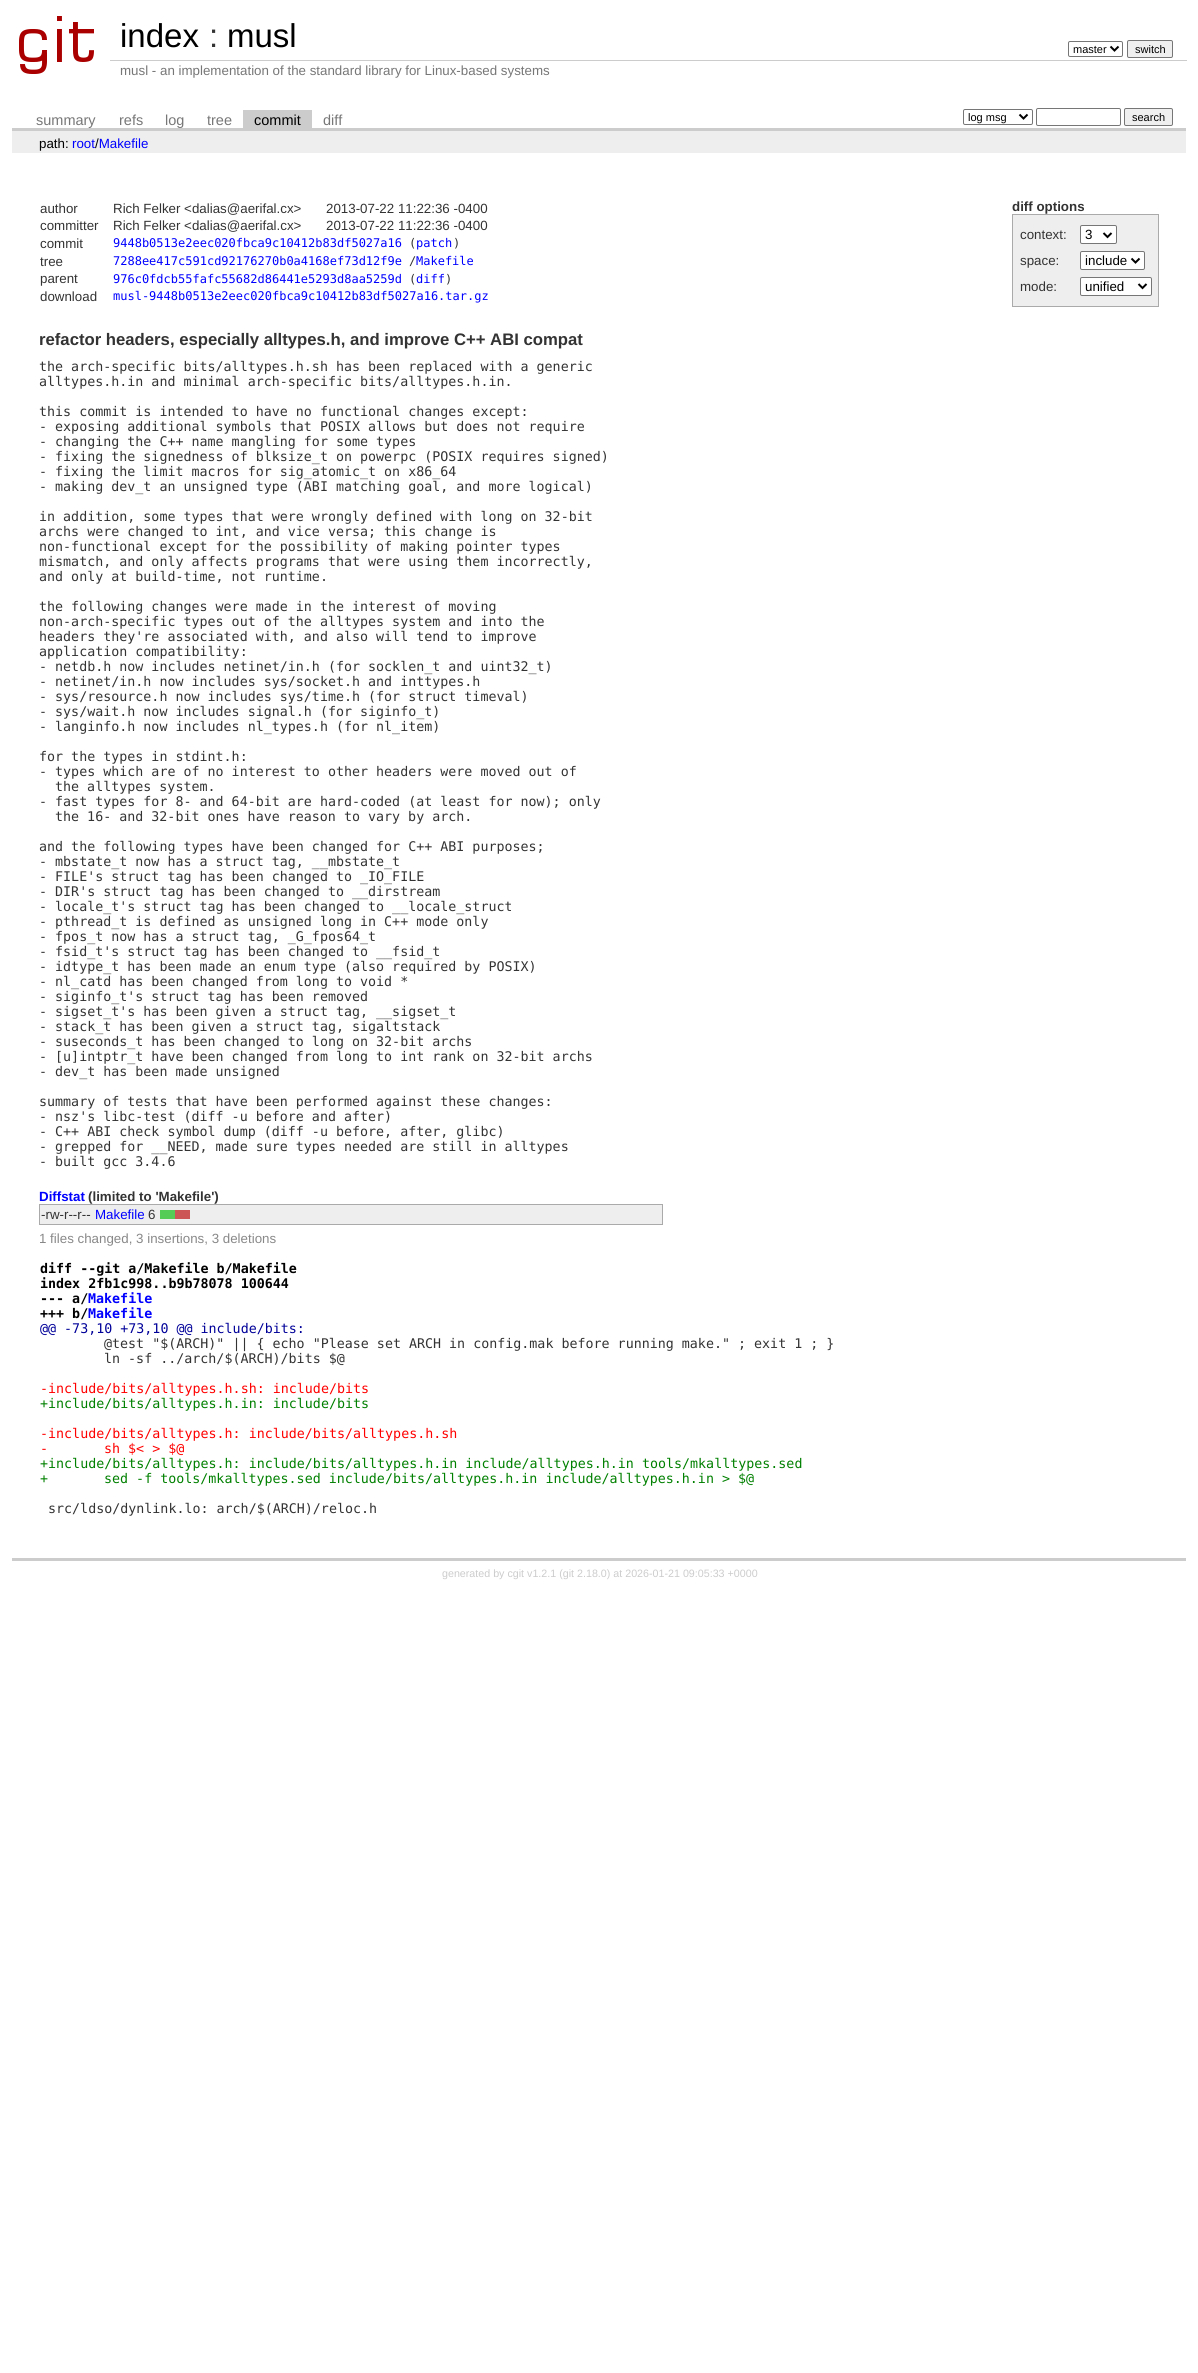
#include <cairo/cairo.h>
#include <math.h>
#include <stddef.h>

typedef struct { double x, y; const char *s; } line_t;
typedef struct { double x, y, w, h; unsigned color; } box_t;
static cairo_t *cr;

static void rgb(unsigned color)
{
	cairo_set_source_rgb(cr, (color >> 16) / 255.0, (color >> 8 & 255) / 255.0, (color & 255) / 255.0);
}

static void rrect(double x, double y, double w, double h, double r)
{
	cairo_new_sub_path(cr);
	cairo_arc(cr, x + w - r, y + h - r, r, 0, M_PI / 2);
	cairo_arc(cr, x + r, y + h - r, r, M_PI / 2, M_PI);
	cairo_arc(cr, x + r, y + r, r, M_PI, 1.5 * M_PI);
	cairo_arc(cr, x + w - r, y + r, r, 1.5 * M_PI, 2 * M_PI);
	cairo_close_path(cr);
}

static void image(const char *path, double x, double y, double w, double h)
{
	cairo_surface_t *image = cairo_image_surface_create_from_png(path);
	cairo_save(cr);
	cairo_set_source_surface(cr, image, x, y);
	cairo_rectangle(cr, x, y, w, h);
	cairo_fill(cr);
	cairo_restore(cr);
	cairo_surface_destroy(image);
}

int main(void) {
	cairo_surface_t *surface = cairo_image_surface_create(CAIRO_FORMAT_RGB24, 1198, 2373);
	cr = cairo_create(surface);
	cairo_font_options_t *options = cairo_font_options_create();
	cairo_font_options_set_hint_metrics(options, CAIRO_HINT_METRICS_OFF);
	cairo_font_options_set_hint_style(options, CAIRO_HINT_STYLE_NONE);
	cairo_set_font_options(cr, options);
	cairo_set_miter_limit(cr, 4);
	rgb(0xffffff);
	cairo_paint(cr);
	image("img/1.png", 19, 16, 75, 58);
	rrect(1068.5, 41.5, 54, 15, 1.5);
	rgb(0x767676);
	cairo_set_line_width(cr, 1);
	cairo_stroke(cr);
	cairo_new_path(cr);
	cairo_move_to(cr, 1110.5, 46.5);
	cairo_line_to(cr, 1114.5, 50.5);
	cairo_line_to(cr, 1118.5, 46.5);
	rgb(0x000000);
	cairo_set_line_width(cr, 2);
	cairo_stroke(cr);
	rgb(0xefefef);
	rrect(1127.5, 40.5, 45, 17, 1.5);
	cairo_fill_preserve(cr);
	rgb(0x767676);
	cairo_set_line_width(cr, 1);
	cairo_stroke(cr);
	{
		static const box_t items[] = {
			{110, 60, 1077, 1, 0xcccccc},
			{12, 128, 1174, 3, 0xcccccc},
			{243, 110, 69, 18, 0xcccccc},
		};
		for (size_t i = 0; i < sizeof items / sizeof *items; i++) {
			rgb(items[i].color);
			cairo_rectangle(cr, items[i].x, items[i].y, items[i].w, items[i].h);
			cairo_fill(cr);
		}
	}
	rrect(963.5, 109.5, 69, 15, 1.5);
	rgb(0x767676);
	cairo_stroke(cr);
	cairo_new_path(cr);
	cairo_move_to(cr, 1019.5, 114.5);
	cairo_line_to(cr, 1023.5, 118.5);
	cairo_line_to(cr, 1027.5, 114.5);
	rgb(0x000000);
	cairo_set_line_width(cr, 2);
	cairo_stroke(cr);
	rrect(1036.5, 108.5, 84, 17, 1.5);
	rgb(0x767676);
	cairo_set_line_width(cr, 1);
	cairo_stroke(cr);
	rgb(0xefefef);
	rrect(1124.5, 108.5, 48, 17, 1.5);
	cairo_fill_preserve(cr);
	rgb(0x767676);
	cairo_stroke(cr);
	{
		static const box_t items[] = {
			{12, 131, 1174, 22, 0xeeeeee},
			{12, 1558, 1174, 3, 0xcccccc},
			{1013, 215, 145, 91, 0xeeeeee},
			{1012, 214, 147, 1, 0xaaaaaa},
			{1158, 214, 1, 93, 0xaaaaaa},
			{1012, 306, 147, 1, 0xaaaaaa},
			{1012, 214, 1, 93, 0xaaaaaa},
		};
		for (size_t i = 0; i < sizeof items / sizeof *items; i++) {
			rgb(items[i].color);
			cairo_rectangle(cr, items[i].x, items[i].y, items[i].w, items[i].h);
			cairo_fill(cr);
		}
	}
	rgb(0xffffff);
	rrect(1080.5, 225.5, 36, 18, 1.5);
	cairo_fill_preserve(cr);
	rgb(0x767676);
	cairo_stroke(cr);
	cairo_new_path(cr);
	cairo_move_to(cr, 1103.5, 233);
	cairo_line_to(cr, 1107.5, 237);
	cairo_line_to(cr, 1111.5, 233);
	rgb(0x000000);
	cairo_set_line_width(cr, 2);
	cairo_stroke(cr);
	rgb(0xffffff);
	rrect(1080.5, 251.5, 64, 18, 1.5);
	cairo_fill_preserve(cr);
	rgb(0x767676);
	cairo_set_line_width(cr, 1);
	cairo_stroke(cr);
	cairo_new_path(cr);
	cairo_move_to(cr, 1131.5, 258.5);
	cairo_line_to(cr, 1135.5, 262.5);
	cairo_line_to(cr, 1139.5, 258.5);
	rgb(0x000000);
	cairo_set_line_width(cr, 2);
	cairo_stroke(cr);
	rgb(0xffffff);
	rrect(1080.5, 277.5, 71, 18, 1.5);
	cairo_fill_preserve(cr);
	rgb(0x767676);
	cairo_set_line_width(cr, 1);
	cairo_stroke(cr);
	cairo_new_path(cr);
	cairo_move_to(cr, 1138.5, 284);
	cairo_line_to(cr, 1142.5, 288);
	cairo_line_to(cr, 1146.5, 284);
	rgb(0x000000);
	cairo_set_line_width(cr, 2);
	cairo_stroke(cr);
	{
		static const box_t items[] = {
			{40, 1205, 622, 19, 0xeeeeee},
			{39, 1204, 624, 1, 0xaaaaaa},
			{662, 1204, 1, 21, 0xaaaaaa},
			{39, 1224, 624, 1, 0xaaaaaa},
			{39, 1204, 1, 21, 0xaaaaaa},
			{160, 1210, 15, 9, 0x55cc55},
			{175, 1210, 15, 9, 0xcc5555},
		};
		for (size_t i = 0; i < sizeof items / sizeof *items; i++) {
			rgb(items[i].color);
			cairo_rectangle(cr, items[i].x, items[i].y, items[i].w, items[i].h);
			cairo_fill(cr);
		}
	}
	cairo_select_font_face(cr, "Liberation Sans", CAIRO_FONT_SLANT_NORMAL, CAIRO_FONT_WEIGHT_NORMAL);
	cairo_set_font_size(cr, 33);
	rgb(0x000000);
	cairo_move_to(cr, 120, 47);
	cairo_show_text(cr, "index");
	rgb(0x333333);
	cairo_move_to(cr, 209, 47);
	cairo_show_text(cr, ":");
	rgb(0x000000);
	cairo_move_to(cr, 227, 47);
	cairo_show_text(cr, "musl");
	cairo_set_font_size(cr, 11);
	cairo_move_to(cr, 1073, 53);
	cairo_show_text(cr, "master");
	cairo_move_to(cr, 1135, 53);
	cairo_show_text(cr, "switch");
	cairo_set_font_size(cr, 13.33);
	rgb(0x777777);
	cairo_move_to(cr, 120, 75);
	cairo_show_text(cr, "musl - an implementation of the standard library for Linux-based systems");
	cairo_set_font_size(cr, 14.5);
	{
		static const line_t items[] = {
			{36, 125, "summary"},
			{119, 125, "refs"},
			{165, 125, "log"},
			{207, 125, "tree"},
		};
		for (size_t i = 0; i < sizeof items / sizeof *items; i++) {
			cairo_move_to(cr, items[i].x, items[i].y);
			cairo_show_text(cr, items[i].s);
		}
	}
	rgb(0x000000);
	cairo_move_to(cr, 254, 125);
	cairo_show_text(cr, "commit");
	rgb(0x777777);
	cairo_move_to(cr, 323, 125);
	cairo_show_text(cr, "diff");
	cairo_set_font_size(cr, 11);
	rgb(0x000000);
	cairo_move_to(cr, 968, 121);
	cairo_show_text(cr, "log msg");
	cairo_move_to(cr, 1132, 121);
	cairo_show_text(cr, "search");
	cairo_set_font_size(cr, 13.33);
	cairo_move_to(cr, 39, 148);
	cairo_show_text(cr, "path:");
	rgb(0x0000ff);
	cairo_move_to(cr, 72, 148);
	cairo_show_text(cr, "root Makefile");
	rgb(0x000000);
	cairo_move_to(cr, 95, 148);
	cairo_show_text(cr, "/");
	rgb(0x333333);
	{
		static const line_t items[] = {
			{40, 213, "author"},
			{113, 213, "Rich Felker <dalias@aerifal.cx>"},
			{326, 213, "2013-07-22 11:22:36 -0400"},
			{40, 230, "committer"},
			{113, 230, "Rich Felker <dalias@aerifal.cx>"},
			{326, 230, "2013-07-22 11:22:36 -0400"},
			{40, 248, "commit"},
		};
		for (size_t i = 0; i < sizeof items / sizeof *items; i++) {
			cairo_move_to(cr, items[i].x, items[i].y);
			cairo_show_text(cr, items[i].s);
		}
	}
	cairo_select_font_face(cr, "DejaVu Sans Mono", CAIRO_FONT_SLANT_NORMAL, CAIRO_FONT_WEIGHT_NORMAL);
	cairo_set_font_size(cr, 12);
	rgb(0x0000ff);
	cairo_move_to(cr, 113, 247);
	cairo_show_text(cr, "9448b0513e2eec020fbca9c10412b83df5027a16");
	rgb(0x333333);
	cairo_move_to(cr, 409, 247);
	cairo_show_text(cr, "(");
	rgb(0x0000ff);
	cairo_move_to(cr, 416, 247);
	cairo_show_text(cr, "patch");
	rgb(0x333333);
	cairo_move_to(cr, 453, 247);
	cairo_show_text(cr, ")");
	cairo_select_font_face(cr, "Liberation Sans", CAIRO_FONT_SLANT_NORMAL, CAIRO_FONT_WEIGHT_NORMAL);
	cairo_set_font_size(cr, 13.33);
	cairo_move_to(cr, 40, 266);
	cairo_show_text(cr, "tree");
	cairo_select_font_face(cr, "DejaVu Sans Mono", CAIRO_FONT_SLANT_NORMAL, CAIRO_FONT_WEIGHT_NORMAL);
	cairo_set_font_size(cr, 12);
	rgb(0x0000ff);
	cairo_move_to(cr, 113, 265);
	cairo_show_text(cr, "7288ee417c591cd92176270b0a4168ef73d12f9e");
	rgb(0x333333);
	cairo_move_to(cr, 409, 265);
	cairo_show_text(cr, "/");
	rgb(0x0000ff);
	cairo_move_to(cr, 416, 265);
	cairo_show_text(cr, "Makefile");
	cairo_select_font_face(cr, "Liberation Sans", CAIRO_FONT_SLANT_NORMAL, CAIRO_FONT_WEIGHT_NORMAL);
	cairo_set_font_size(cr, 13.33);
	rgb(0x333333);
	cairo_move_to(cr, 40, 283);
	cairo_show_text(cr, "parent");
	cairo_select_font_face(cr, "DejaVu Sans Mono", CAIRO_FONT_SLANT_NORMAL, CAIRO_FONT_WEIGHT_NORMAL);
	cairo_set_font_size(cr, 12);
	rgb(0x0000ff);
	cairo_move_to(cr, 113, 283);
	cairo_show_text(cr, "976c0fdcb55fafc55682d86441e5293d8aa5259d");
	rgb(0x333333);
	cairo_move_to(cr, 409, 283);
	cairo_show_text(cr, "(");
	rgb(0x0000ff);
	cairo_move_to(cr, 416, 283);
	cairo_show_text(cr, "diff");
	rgb(0x333333);
	cairo_move_to(cr, 445, 283);
	cairo_show_text(cr, ")");
	cairo_select_font_face(cr, "Liberation Sans", CAIRO_FONT_SLANT_NORMAL, CAIRO_FONT_WEIGHT_NORMAL);
	cairo_set_font_size(cr, 13.33);
	cairo_move_to(cr, 40, 301);
	cairo_show_text(cr, "download");
	cairo_select_font_face(cr, "DejaVu Sans Mono", CAIRO_FONT_SLANT_NORMAL, CAIRO_FONT_WEIGHT_NORMAL);
	cairo_set_font_size(cr, 12);
	rgb(0x0000ff);
	cairo_move_to(cr, 113, 300);
	cairo_show_text(cr, "musl-9448b0513e2eec020fbca9c10412b83df5027a16.tar.gz");
	cairo_select_font_face(cr, "Liberation Sans", CAIRO_FONT_SLANT_NORMAL, CAIRO_FONT_WEIGHT_BOLD);
	cairo_set_font_size(cr, 13.33);
	rgb(0x333333);
	cairo_move_to(cr, 1012, 211);
	cairo_show_text(cr, "diff options");
	cairo_select_font_face(cr, "Liberation Sans", CAIRO_FONT_SLANT_NORMAL, CAIRO_FONT_WEIGHT_NORMAL);
	cairo_move_to(cr, 1020, 239);
	cairo_show_text(cr, "context:");
	rgb(0x000000);
	cairo_move_to(cr, 1085, 239);
	cairo_show_text(cr, "3");
	rgb(0x333333);
	cairo_move_to(cr, 1020, 265);
	cairo_show_text(cr, "space:");
	rgb(0x000000);
	cairo_move_to(cr, 1085, 265);
	cairo_show_text(cr, "include");
	rgb(0x333333);
	cairo_move_to(cr, 1020, 291);
	cairo_show_text(cr, "mode:");
	rgb(0x000000);
	cairo_move_to(cr, 1085, 291);
	cairo_show_text(cr, "unified");
	cairo_select_font_face(cr, "Liberation Sans", CAIRO_FONT_SLANT_NORMAL, CAIRO_FONT_WEIGHT_BOLD);
	cairo_set_font_size(cr, 16.7);
	rgb(0x333333);
	cairo_move_to(cr, 39, 345);
	cairo_show_text(cr, "refactor headers, especially alltypes.h, and improve C++ ABI compat");
	cairo_select_font_face(cr, "DejaVu Sans Mono", CAIRO_FONT_SLANT_NORMAL, CAIRO_FONT_WEIGHT_NORMAL);
	cairo_set_font_size(cr, 13.33);
	{
		static const line_t items[] = {
			{39, 371, "the arch-specific bits/alltypes.h.sh has been replaced with a generic"},
			{39, 386, "alltypes.h.in and minimal arch-specific bits/alltypes.h.in."},
			{39, 416, "this commit is intended to have no functional changes except:"},
			{39, 431, "- exposing additional symbols that POSIX allows but does not require"},
			{39, 446, "- changing the C++ name mangling for some types"},
			{39, 461, "- fixing the signedness of blksize_t on powerpc (POSIX requires signed)"},
			{39, 476, "- fixing the limit macros for sig_atomic_t on x86_64"},
			{39, 491, "- making dev_t an unsigned type (ABI matching goal, and more logical)"},
			{39, 521, "in addition, some types that were wrongly defined with long on 32-bit"},
			{39, 536, "archs were changed to int, and vice versa; this change is"},
			{39, 551, "non-functional except for the possibility of making pointer types"},
			{39, 566, "mismatch, and only affects programs that were using them incorrectly,"},
			{39, 581, "and only at build-time, not runtime."},
			{39, 611, "the following changes were made in the interest of moving"},
			{39, 626, "non-arch-specific types out of the alltypes system and into the"},
			{39, 641, "headers they're associated with, and also will tend to improve"},
			{39, 656, "application compatibility:"},
			{39, 671, "- netdb.h now includes netinet/in.h (for socklen_t and uint32_t)"},
			{39, 686, "- netinet/in.h now includes sys/socket.h and inttypes.h"},
			{39, 701, "- sys/resource.h now includes sys/time.h (for struct timeval)"},
			{39, 716, "- sys/wait.h now includes signal.h (for siginfo_t)"},
			{39, 731, "- langinfo.h now includes nl_types.h (for nl_item)"},
			{39, 761, "for the types in stdint.h:"},
			{39, 776, "- types which are of no interest to other headers were moved out of"},
			{55, 791, "the alltypes system."},
			{39, 806, "- fast types for 8- and 64-bit are hard-coded (at least for now); only"},
			{55, 821, "the 16- and 32-bit ones have reason to vary by arch."},
			{39, 851, "and the following types have been changed for C++ ABI purposes;"},
			{39, 866, "- mbstate_t now has a struct tag, __mbstate_t"},
			{39, 881, "- FILE's struct tag has been changed to _IO_FILE"},
			{39, 896, "- DIR's struct tag has been changed to __dirstream"},
			{39, 911, "- locale_t's struct tag has been changed to __locale_struct"},
			{39, 926, "- pthread_t is defined as unsigned long in C++ mode only"},
			{39, 941, "- fpos_t now has a struct tag, _G_fpos64_t"},
			{39, 956, "- fsid_t's struct tag has been changed to __fsid_t"},
			{39, 971, "- idtype_t has been made an enum type (also required by POSIX)"},
			{39, 986, "- nl_catd has been changed from long to void *"},
			{39, 1001, "- siginfo_t's struct tag has been removed"},
			{39, 1016, "- sigset_t's has been given a struct tag, __sigset_t"},
			{39, 1031, "- stack_t has been given a struct tag, sigaltstack"},
			{39, 1046, "- suseconds_t has been changed to long on 32-bit archs"},
			{39, 1061, "- [u]intptr_t have been changed from long to int rank on 32-bit archs"},
			{39, 1076, "- dev_t has been made unsigned"},
			{39, 1106, "summary of tests that have been performed against these changes:"},
			{39, 1121, "- nsz's libc-test (diff -u before and after)"},
			{39, 1136, "- C++ ABI check symbol dump (diff -u before, after, glibc)"},
			{39, 1151, "- grepped for __NEED, made sure types needed are still in alltypes"},
			{39, 1166, "- built gcc 3.4.6"},
		};
		for (size_t i = 0; i < sizeof items / sizeof *items; i++) {
			cairo_move_to(cr, items[i].x, items[i].y);
			cairo_show_text(cr, items[i].s);
		}
	}
	cairo_select_font_face(cr, "Liberation Sans", CAIRO_FONT_SLANT_NORMAL, CAIRO_FONT_WEIGHT_BOLD);
	rgb(0x0000ff);
	cairo_move_to(cr, 39, 1201);
	cairo_show_text(cr, "Diffstat");
	rgb(0x333333);
	cairo_move_to(cr, 88, 1201);
	cairo_show_text(cr, "(limited to 'Makefile')");
	cairo_select_font_face(cr, "Liberation Sans", CAIRO_FONT_SLANT_NORMAL, CAIRO_FONT_WEIGHT_NORMAL);
	cairo_move_to(cr, 41, 1219);
	cairo_show_text(cr, "-rw-r--r--");
	rgb(0x0000ff);
	cairo_move_to(cr, 95, 1219);
	cairo_show_text(cr, "Makefile");
	rgb(0x333333);
	cairo_move_to(cr, 148, 1219);
	cairo_show_text(cr, "6");
	rgb(0x888888);
	cairo_move_to(cr, 39, 1243);
	cairo_show_text(cr, "1 files changed, 3 insertions, 3 deletions");
	cairo_select_font_face(cr, "DejaVu Sans Mono", CAIRO_FONT_SLANT_NORMAL, CAIRO_FONT_WEIGHT_BOLD);
	rgb(0x000000);
	{
		static const line_t items[] = {
			{40, 1273, "diff --git a/Makefile b/Makefile"},
			{40, 1288, "index 2fb1c998..b9b78078 100644"},
			{40, 1303, "--- a/"},
		};
		for (size_t i = 0; i < sizeof items / sizeof *items; i++) {
			cairo_move_to(cr, items[i].x, items[i].y);
			cairo_show_text(cr, items[i].s);
		}
	}
	rgb(0x0000ff);
	cairo_move_to(cr, 88, 1303);
	cairo_show_text(cr, "Makefile");
	rgb(0x000000);
	cairo_move_to(cr, 40, 1318);
	cairo_show_text(cr, "+++ b/");
	rgb(0x0000ff);
	cairo_move_to(cr, 88, 1318);
	cairo_show_text(cr, "Makefile");
	cairo_select_font_face(cr, "DejaVu Sans Mono", CAIRO_FONT_SLANT_NORMAL, CAIRO_FONT_WEIGHT_NORMAL);
	rgb(0x000099);
	cairo_move_to(cr, 40, 1333);
	cairo_show_text(cr, "@@ -73,10 +73,10 @@ include/bits:");
	rgb(0x333333);
	cairo_move_to(cr, 104, 1348);
	cairo_show_text(cr, "@test \"$(ARCH)\" || { echo \"Please set ARCH in config.mak before running make.\" ; exit 1 ; }");
	cairo_move_to(cr, 104, 1363);
	cairo_show_text(cr, "ln -sf ../arch/$(ARCH)/bits $@");
	rgb(0xff0000);
	cairo_move_to(cr, 40, 1393);
	cairo_show_text(cr, "-include/bits/alltypes.h.sh: include/bits");
	rgb(0x008000);
	cairo_move_to(cr, 40, 1408);
	cairo_show_text(cr, "+include/bits/alltypes.h.in: include/bits");
	rgb(0xff0000);
	{
		static const line_t items[] = {
			{40, 1438, "-include/bits/alltypes.h: include/bits/alltypes.h.sh"},
			{40, 1453, "-"},
			{104, 1453, "sh $< > $@"},
		};
		for (size_t i = 0; i < sizeof items / sizeof *items; i++) {
			cairo_move_to(cr, items[i].x, items[i].y);
			cairo_show_text(cr, items[i].s);
		}
	}
	rgb(0x008000);
	{
		static const line_t items[] = {
			{40, 1468, "+include/bits/alltypes.h: include/bits/alltypes.h.in include/alltypes.h.in tools/mkalltypes.sed"},
			{40, 1483, "+"},
			{104, 1483, "sed -f tools/mkalltypes.sed include/bits/alltypes.h.in include/alltypes.h.in > $@"},
		};
		for (size_t i = 0; i < sizeof items / sizeof *items; i++) {
			cairo_move_to(cr, items[i].x, items[i].y);
			cairo_show_text(cr, items[i].s);
		}
	}
	rgb(0x333333);
	cairo_move_to(cr, 48, 1513);
	cairo_show_text(cr, "src/ldso/dynlink.lo: arch/$(ARCH)/reloc.h");
	cairo_select_font_face(cr, "Liberation Sans", CAIRO_FONT_SLANT_NORMAL, CAIRO_FONT_WEIGHT_NORMAL);
	cairo_set_font_size(cr, 10.7);
	rgb(0xcccccc);
	cairo_move_to(cr, 442, 1577);
	cairo_show_text(cr, "generated by cgit v1.2.1 (git 2.18.0) at 2026-01-21 09:05:33 +0000");
	cairo_surface_write_to_png(surface, "page.png");
	cairo_font_options_destroy(options);
	cairo_destroy(cr);
	cairo_surface_destroy(surface);
	return 0;
}
